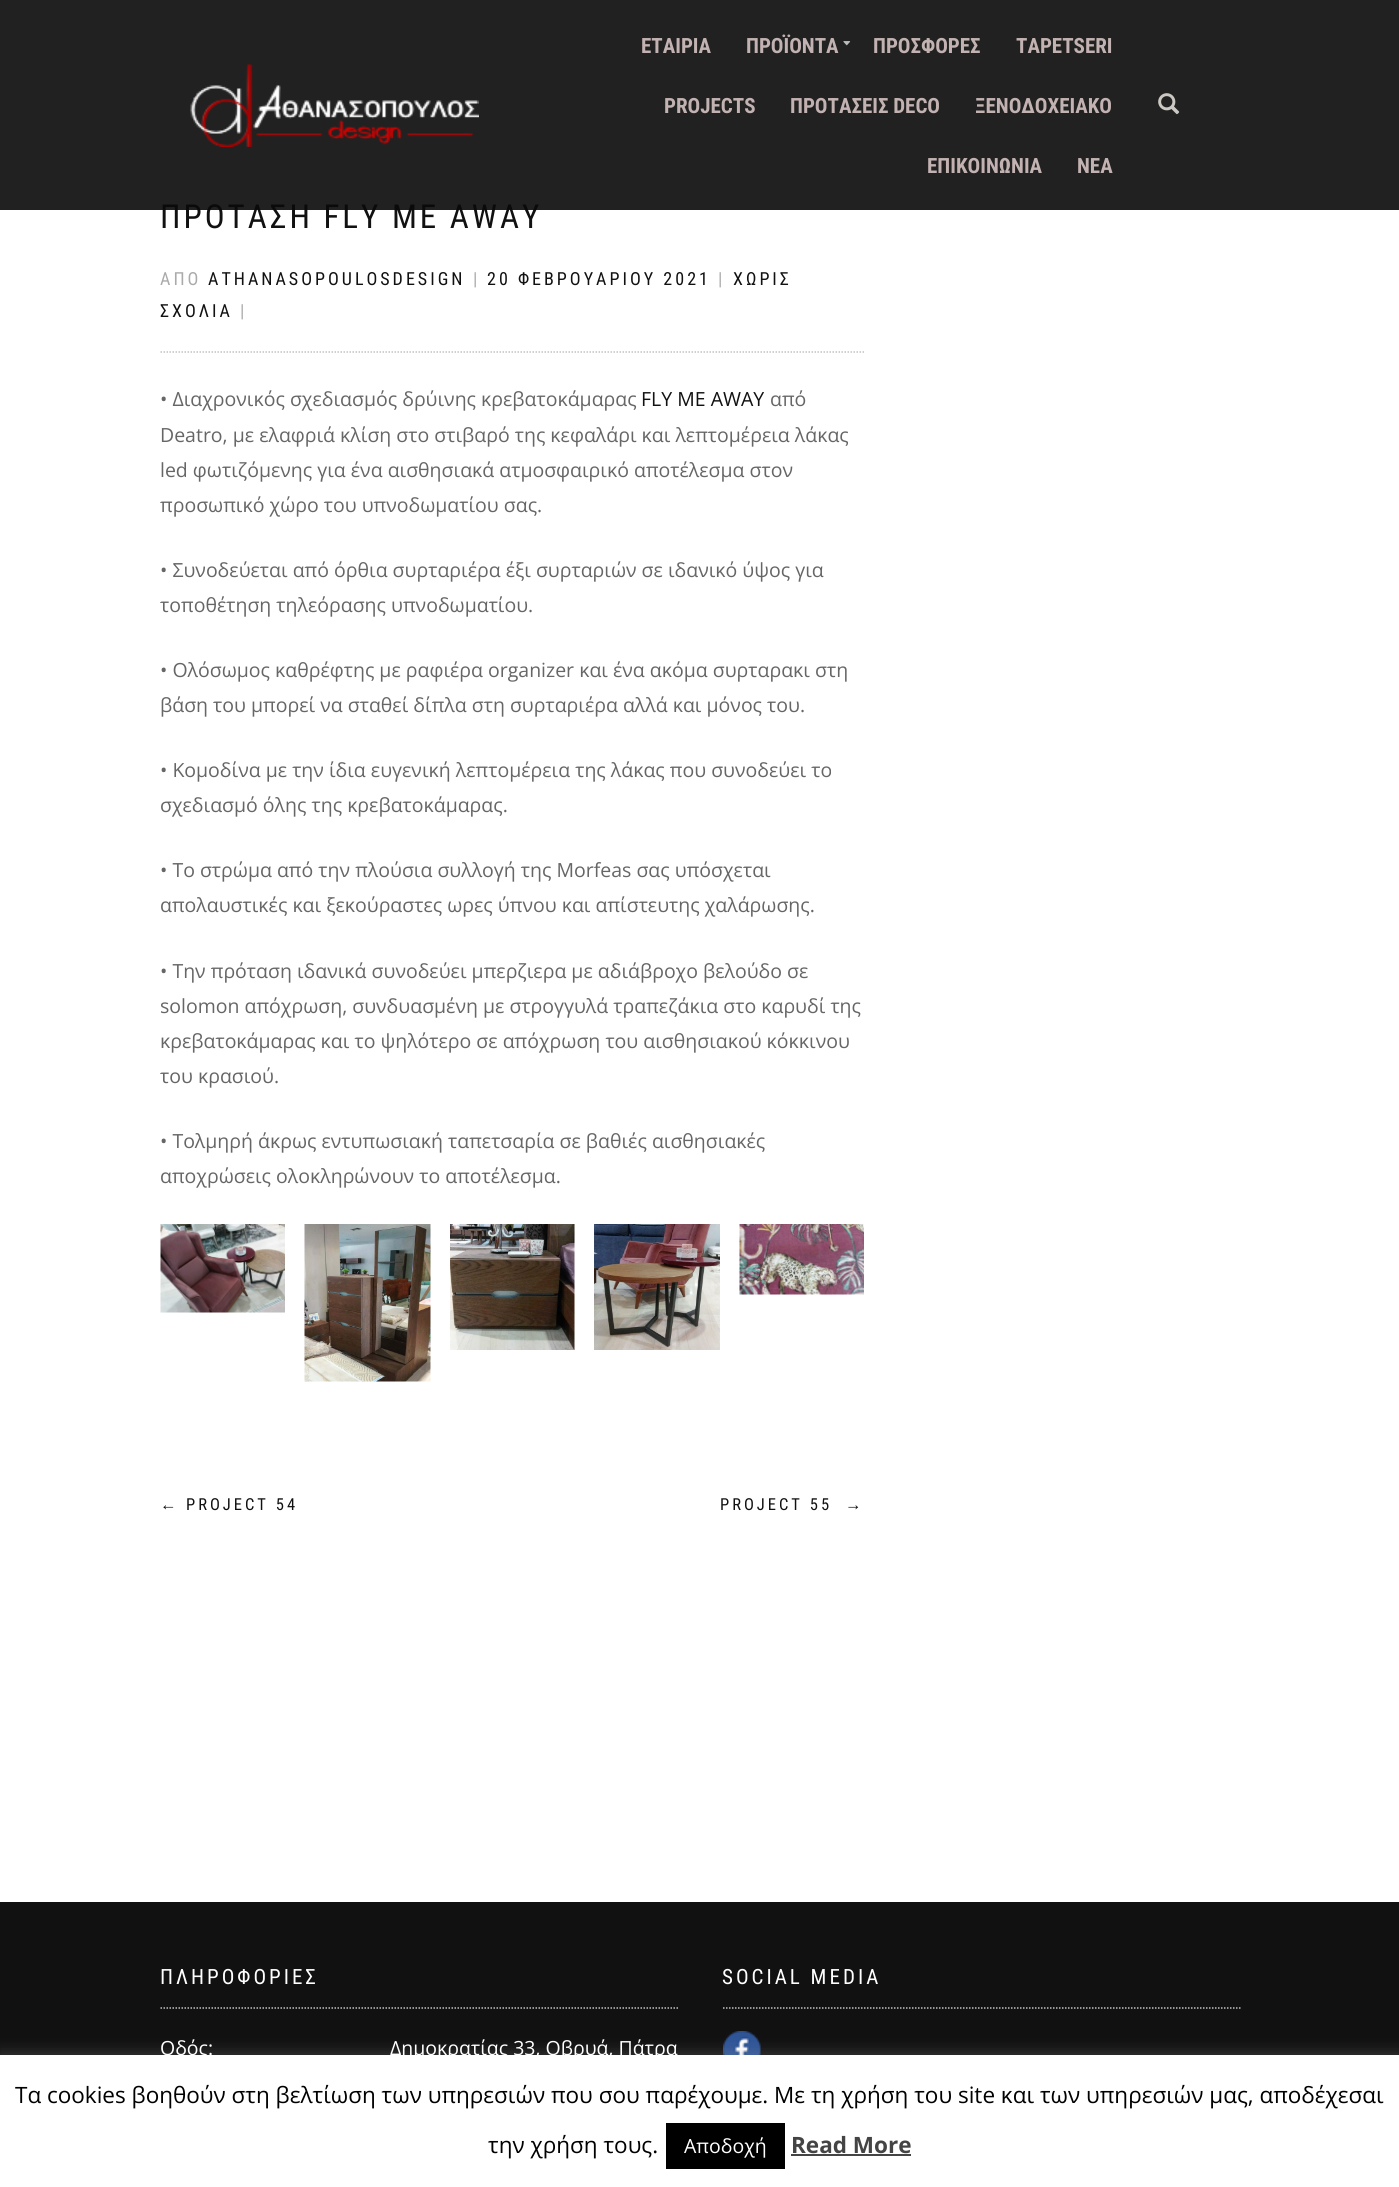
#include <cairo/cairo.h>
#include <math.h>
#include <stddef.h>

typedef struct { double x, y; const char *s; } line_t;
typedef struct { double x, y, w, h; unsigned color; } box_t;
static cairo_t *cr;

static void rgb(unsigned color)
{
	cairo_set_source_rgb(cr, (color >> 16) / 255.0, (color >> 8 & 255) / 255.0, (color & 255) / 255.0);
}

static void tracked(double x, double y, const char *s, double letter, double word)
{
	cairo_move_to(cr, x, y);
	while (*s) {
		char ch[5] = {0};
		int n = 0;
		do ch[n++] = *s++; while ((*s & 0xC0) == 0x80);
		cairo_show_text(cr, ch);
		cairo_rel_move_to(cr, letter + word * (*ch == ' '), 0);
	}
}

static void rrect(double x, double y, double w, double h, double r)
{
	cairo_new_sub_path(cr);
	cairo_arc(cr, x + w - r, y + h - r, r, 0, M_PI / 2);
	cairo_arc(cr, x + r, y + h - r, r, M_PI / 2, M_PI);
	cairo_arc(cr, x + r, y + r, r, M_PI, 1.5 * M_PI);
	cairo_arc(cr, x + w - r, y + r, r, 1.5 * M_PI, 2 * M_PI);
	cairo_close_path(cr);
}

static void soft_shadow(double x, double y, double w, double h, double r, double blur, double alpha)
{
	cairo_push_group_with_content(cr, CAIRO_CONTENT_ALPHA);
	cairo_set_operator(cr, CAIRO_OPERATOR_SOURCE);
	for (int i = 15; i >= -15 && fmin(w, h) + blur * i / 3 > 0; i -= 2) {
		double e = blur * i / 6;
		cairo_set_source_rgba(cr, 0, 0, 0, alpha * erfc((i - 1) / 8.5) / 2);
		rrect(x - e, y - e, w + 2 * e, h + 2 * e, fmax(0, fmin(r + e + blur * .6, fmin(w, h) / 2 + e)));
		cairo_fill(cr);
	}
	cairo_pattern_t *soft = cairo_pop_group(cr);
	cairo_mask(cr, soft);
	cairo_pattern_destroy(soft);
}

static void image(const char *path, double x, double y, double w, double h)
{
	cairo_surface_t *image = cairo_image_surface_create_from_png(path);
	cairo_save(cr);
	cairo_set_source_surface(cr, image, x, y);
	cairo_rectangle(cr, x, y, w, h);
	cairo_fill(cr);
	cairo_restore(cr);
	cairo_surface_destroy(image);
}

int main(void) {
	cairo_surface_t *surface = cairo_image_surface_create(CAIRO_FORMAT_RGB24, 1399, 2187);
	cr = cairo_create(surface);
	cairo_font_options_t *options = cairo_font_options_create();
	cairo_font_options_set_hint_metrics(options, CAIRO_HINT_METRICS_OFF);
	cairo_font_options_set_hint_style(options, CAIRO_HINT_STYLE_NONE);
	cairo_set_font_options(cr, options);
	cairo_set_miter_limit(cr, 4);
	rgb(0xffffff);
	cairo_paint(cr);
	cairo_new_path(cr);
	cairo_move_to(cr, 160.5, 352);
	cairo_line_to(cr, 865.5, 352);
	rgb(0xc2c2c2);
	cairo_set_line_width(cr, 1.5);
	cairo_set_dash(cr, (double[]){1.5, 1.5}, 2, 0);
	cairo_stroke(cr);
	image("img/4.png", 160, 1224, 125, 89);
	image("img/5.png", 304, 1224, 127, 158);
	image("img/6.png", 450, 1224, 125, 126);
	image("img/7.png", 594, 1224, 126, 126);
	image("img/8.png", 739, 1224, 125, 71);
	rgb(0x111111);
	cairo_rectangle(cr, 0, 1902, 1399, 153);
	cairo_fill(cr);
	cairo_new_path(cr);
	cairo_move_to(cr, 160.5, 2008);
	cairo_line_to(cr, 678, 2008);
	rgb(0xc2c2c2);
	cairo_stroke(cr);
	cairo_new_path(cr);
	cairo_move_to(cr, 723, 2008);
	cairo_line_to(cr, 1240.5, 2008);
	cairo_stroke(cr);
	image("img/9.png", 723, 2031, 38, 24);
	rgb(0xacabab);
	soft_shadow(0, 2054, 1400, 132, 0, 7.5, 0.3);
	{
		static const box_t items[] = {
			{0, 2055, 1399, 132, 0xffffff},
			{666, 2123, 119, 46, 0x000000},
			{791, 2154, 120, 2, 0x444444},
		};
		for (size_t i = 0; i < sizeof items / sizeof *items; i++) {
			rgb(items[i].color);
			cairo_rectangle(cr, items[i].x, items[i].y, items[i].w, items[i].h);
			cairo_fill(cr);
		}
	}
	cairo_select_font_face(cr, "Roboto Condensed", CAIRO_FONT_SLANT_NORMAL, CAIRO_FONT_WEIGHT_NORMAL);
	cairo_set_font_size(cr, 33);
	rgb(0x111111);
	tracked(160, 228, "ΠΡΟΤΑΣΗ FLY ME AWAY", 3, 0);
	cairo_set_source_rgba(cr, 0.039, 0.039, 0.039, 0.9);
	cairo_rectangle(cr, 0, 0, 1399, 210);
	cairo_fill(cr);
	image("img/2.png", 843, 41, 8, 5);
	image("img/3.png", 1158, 93, 22, 22);
	cairo_select_font_face(cr, "Roboto Condensed", CAIRO_FONT_SLANT_NORMAL, CAIRO_FONT_WEIGHT_BOLD);
	cairo_set_font_size(cr, 21);
	rgb(0xc3b2b2);
	{
		static const line_t items[] = {
			{1077, 173, "ΝΕΑ"},
			{927, 173, "ΕΠΙΚΟΙΝΩΝΙΑ"},
			{975, 113, "ΞΕΝΟΔΟΧΕΙΑΚΟ"},
			{790, 113, "ΠΡΟΤΑΣΕΙΣ DECO"},
			{664, 113, "PROJECTS"},
			{1016, 53, "TAPETSERI"},
			{873, 53, "ΠΡΟΣΦΟΡΕΣ"},
			{746, 53, "ΠΡΟΪΟΝΤΑ"},
			{641, 53, "ΕΤΑΙΡΙΑ"},
		};
		for (size_t i = 0; i < sizeof items / sizeof *items; i++) {
			cairo_move_to(cr, items[i].x, items[i].y);
			cairo_show_text(cr, items[i].s);
		}
	}
	image("img/1.png", 190, 64, 289, 83);
	cairo_select_font_face(cr, "Roboto Condensed", CAIRO_FONT_SLANT_NORMAL, CAIRO_FONT_WEIGHT_NORMAL);
	cairo_set_font_size(cr, 18);
	rgb(0xaaaaaa);
	tracked(160, 285, "ΑΠΟ", 3, 0);
	rgb(0x111111);
	tracked(208, 285, "ATHANASOPOULOSDESIGN", 3, 0);
	rgb(0xaaaaaa);
	tracked(473, 285, "|", 3, 0);
	rgb(0x111111);
	tracked(487, 285, "20 ΦΕΒΡΟΥΑΡΙΟΥ 2021", 3, 0);
	rgb(0xaaaaaa);
	tracked(718, 285, "|", 3, 0);
	rgb(0x111111);
	tracked(733, 285, "ΧΩΡΙΣ", 3, 0);
	tracked(160, 317, "ΣΧΟΛΙΑ", 3, 0);
	rgb(0xaaaaaa);
	tracked(240, 317, "|", 3, 0);
	cairo_select_font_face(cr, "Open Sans", CAIRO_FONT_SLANT_NORMAL, CAIRO_FONT_WEIGHT_NORMAL);
	cairo_set_font_size(cr, 19.5);
	rgb(0x666666);
	cairo_move_to(cr, 160, 406);
	cairo_show_text(cr, "• Διαχρονικός σχεδιασμός δρύινης κρεβατοκάμαρας");
	rgb(0x111111);
	cairo_move_to(cr, 641, 406);
	cairo_show_text(cr, "FLY ME AWAY");
	rgb(0x666666);
	{
		static const line_t items[] = {
			{770, 406, "από"},
			{160, 442, "Deatro, με ελαφριά κλίση στο στιβαρό της κεφαλάρι και λεπτομέρεια λάκας"},
			{160, 477, "led φωτιζόμενης για ένα αισθησιακά ατμοσφαιρικό αποτέλεσμα στον"},
			{160, 512, "προσωπικό χώρο του υπνοδωματίου σας."},
			{160, 577, "• Συνοδεύεται από όρθια συρταριέρα έξι συρταριών σε ιδανικό ύψος για"},
			{160, 612, "τοποθέτηση τηλεόρασης υπνοδωματίου."},
			{160, 677, "• Ολόσωμος καθρέφτης με ραφιέρα organizer και ένα ακόμα συρταρακι στη"},
			{160, 712, "βάση του μπορεί να σταθεί δίπλα στη συρταριέρα αλλά και μόνος του."},
			{160, 777, "• Κομοδίνα με την ίδια ευγενική λεπτομέρεια της λάκας που συνοδεύει το"},
			{160, 812, "σχεδιασμό όλης της κρεβατοκάμαρας."},
			{160, 877, "• Το στρώμα από την πλούσια συλλογή της Morfeas σας υπόσχεται"},
			{160, 912, "απολαυστικές και ξεκούραστες ωρες ύπνου και απίστευτης χαλάρωσης."},
			{160, 978, "• Την πρόταση ιδανικά συνοδεύει μπερζιερα με αδιάβροχο βελούδο σε"},
			{160, 1013, "solomon απόχρωση, συνδυασμένη με στρογγυλά τραπεζάκια στο καρυδί της"},
			{160, 1048, "κρεβατοκάμαρας και το ψηλότερο σε απόχρωση του αισθησιακού κόκκινου"},
			{160, 1083, "του κρασιού."},
			{160, 1148, "• Τολμηρή άκρως εντυπωσιακή ταπετσαρία σε βαθιές αισθησιακές"},
			{160, 1183, "αποχρώσεις ολοκληρώνουν το αποτέλεσμα."},
		};
		for (size_t i = 0; i < sizeof items / sizeof *items; i++) {
			cairo_move_to(cr, items[i].x, items[i].y);
			cairo_show_text(cr, items[i].s);
		}
	}
	cairo_select_font_face(cr, "Liberation Sans", CAIRO_FONT_SLANT_NORMAL, CAIRO_FONT_WEIGHT_NORMAL);
	cairo_set_font_size(cr, 16.5);
	rgb(0x111111);
	tracked(160, 1510, "←", 3, 0);
	cairo_select_font_face(cr, "Roboto Condensed", CAIRO_FONT_SLANT_NORMAL, CAIRO_FONT_WEIGHT_NORMAL);
	tracked(186, 1510, "PROJECT 54", 3, 0);
	tracked(720, 1510, "PROJECT 55", 3, 0);
	cairo_select_font_face(cr, "Liberation Sans", CAIRO_FONT_SLANT_NORMAL, CAIRO_FONT_WEIGHT_NORMAL);
	tracked(845, 1510, "→", 3, 0);
	cairo_select_font_face(cr, "Roboto Condensed", CAIRO_FONT_SLANT_NORMAL, CAIRO_FONT_WEIGHT_NORMAL);
	cairo_set_font_size(cr, 21);
	rgb(0xffffff);
	tracked(160, 1984, "ΠΛΗΡΟΦΟΡΙΕΣ", 3, 0);
	cairo_select_font_face(cr, "Open Sans", CAIRO_FONT_SLANT_NORMAL, CAIRO_FONT_WEIGHT_NORMAL);
	cairo_set_font_size(cr, 19.5);
	cairo_move_to(cr, 160, 2055);
	cairo_show_text(cr, "Οδός:");
	cairo_move_to(cr, 390, 2055);
	cairo_show_text(cr, "Δημοκρατίας 33, Οβρυά, Πάτρα");
	cairo_select_font_face(cr, "Roboto Condensed", CAIRO_FONT_SLANT_NORMAL, CAIRO_FONT_WEIGHT_NORMAL);
	cairo_set_font_size(cr, 21);
	tracked(722, 1984, "SOCIAL MEDIA", 3, 0);
	cairo_select_font_face(cr, "Open Sans", CAIRO_FONT_SLANT_NORMAL, CAIRO_FONT_WEIGHT_NORMAL);
	cairo_set_font_size(cr, 22.5);
	rgb(0x000000);
	cairo_move_to(cr, 15, 2103);
	cairo_show_text(cr, "Τα cookies βοηθούν στη βελτίωση των υπηρεσιών που σου παρέχουμε. Με τη χρήση του site και των υπηρεσιών μας, αποδέχεσαι");
	cairo_move_to(cr, 488, 2153);
	cairo_show_text(cr, "την χρήση τους.");
	cairo_set_font_size(cr, 19.5);
	rgb(0xffffff);
	cairo_move_to(cr, 684, 2153);
	cairo_show_text(cr, "Αποδοχή");
	cairo_select_font_face(cr, "Open Sans", CAIRO_FONT_SLANT_NORMAL, CAIRO_FONT_WEIGHT_BOLD);
	cairo_set_font_size(cr, 22.5);
	rgb(0x444444);
	cairo_move_to(cr, 791, 2153);
	cairo_show_text(cr, "Read More");
	cairo_surface_write_to_png(surface, "page.png");
	cairo_font_options_destroy(options);
	cairo_destroy(cr);
	cairo_surface_destroy(surface);
	return 0;
}
